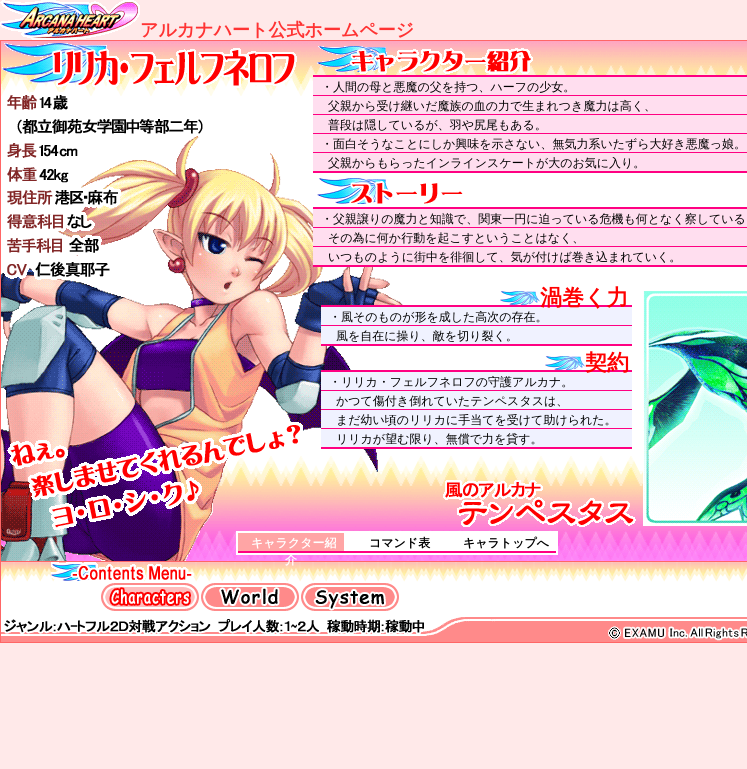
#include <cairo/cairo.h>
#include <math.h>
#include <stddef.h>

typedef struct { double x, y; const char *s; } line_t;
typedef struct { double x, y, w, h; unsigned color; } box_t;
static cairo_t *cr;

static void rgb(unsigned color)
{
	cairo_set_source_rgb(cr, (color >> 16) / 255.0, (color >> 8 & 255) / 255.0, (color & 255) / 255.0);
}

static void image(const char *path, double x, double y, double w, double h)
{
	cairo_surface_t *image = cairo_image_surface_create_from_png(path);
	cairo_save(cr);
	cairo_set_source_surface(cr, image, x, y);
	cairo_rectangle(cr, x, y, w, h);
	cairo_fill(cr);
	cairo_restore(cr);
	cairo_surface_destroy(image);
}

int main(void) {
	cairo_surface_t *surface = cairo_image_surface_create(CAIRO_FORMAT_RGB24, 747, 769);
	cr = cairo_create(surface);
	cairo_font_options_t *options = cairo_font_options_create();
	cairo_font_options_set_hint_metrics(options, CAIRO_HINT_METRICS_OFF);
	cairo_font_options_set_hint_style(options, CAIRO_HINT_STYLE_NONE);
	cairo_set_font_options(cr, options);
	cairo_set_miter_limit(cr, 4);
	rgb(0xffe9e9);
	cairo_paint(cr);
	image("img/1.png", 0, 0, 140, 40);
	image("img/2.png", 1, 41, 746, 520);
	rgb(0xff6666);
	cairo_rectangle(cr, 0, 40, 747, 1);
	cairo_fill(cr);
	cairo_rectangle(cr, 0, 40, 1, 521);
	cairo_fill(cr);
	image("img/3.png", 1, 136, 402, 425);
	image("img/4.png", 2, 43, 295, 45);
	image("img/5.png", 4, 92, 199, 188);
	rgb(0xff0082);
	cairo_rectangle(cr, 313, 75, 434, 2);
	cairo_fill(cr);
	image("img/6.png", 317, 46, 216, 28);
	{
		static const box_t items[] = {
			{313, 77, 434, 18, 0xffdeef},
			{313, 95, 434, 1, 0xff0082},
			{313, 96, 434, 18, 0xffdeef},
			{313, 114, 434, 1, 0xff0082},
			{313, 115, 434, 18, 0xffdeef},
			{313, 133, 434, 1, 0xff0082},
			{313, 134, 434, 18, 0xffdeef},
			{313, 152, 434, 1, 0xff0082},
			{313, 153, 434, 18, 0xffdeef},
			{313, 171, 434, 2, 0xff0082},
			{313, 207, 434, 2, 0xff0082},
		};
		for (size_t i = 0; i < sizeof items / sizeof *items; i++) {
			rgb(items[i].color);
			cairo_rectangle(cr, items[i].x, items[i].y, items[i].w, items[i].h);
			cairo_fill(cr);
		}
	}
	image("img/7.png", 317, 178, 146, 26);
	{
		static const box_t items[] = {
			{313, 209, 434, 18, 0xffdeef},
			{313, 227, 434, 1, 0xff0082},
			{313, 228, 434, 18, 0xffdeef},
			{313, 246, 434, 1, 0xff0082},
			{313, 247, 434, 18, 0xffdeef},
			{313, 265, 434, 2, 0xff0082},
			{321, 305, 311, 2, 0xff0082},
		};
		for (size_t i = 0; i < sizeof items / sizeof *items; i++) {
			rgb(items[i].color);
			cairo_rectangle(cr, items[i].x, items[i].y, items[i].w, items[i].h);
			cairo_fill(cr);
		}
	}
	image("img/8.png", 500, 291, 40, 14);
	{
		static const box_t items[] = {
			{321, 307, 311, 18, 0xf0f2ff},
			{321, 325, 311, 1, 0xff0082},
			{321, 326, 311, 18, 0xf0f2ff},
			{321, 344, 311, 2, 0xff0082},
			{321, 370, 311, 2, 0xff0082},
		};
		for (size_t i = 0; i < sizeof items / sizeof *items; i++) {
			rgb(items[i].color);
			cairo_rectangle(cr, items[i].x, items[i].y, items[i].w, items[i].h);
			cairo_fill(cr);
		}
	}
	image("img/8.png", 545, 356, 40, 14);
	{
		static const box_t items[] = {
			{321, 372, 311, 18, 0xf0f2ff},
			{321, 390, 311, 1, 0xff0082},
			{321, 391, 311, 18, 0xf0f2ff},
			{321, 409, 311, 1, 0xff0082},
			{321, 410, 311, 18, 0xf0f2ff},
			{321, 428, 311, 1, 0xff0082},
			{321, 429, 311, 18, 0xf0f2ff},
			{321, 447, 311, 2, 0xff0082},
		};
		for (size_t i = 0; i < sizeof items / sizeof *items; i++) {
			rgb(items[i].color);
			cairo_rectangle(cr, items[i].x, items[i].y, items[i].w, items[i].h);
			cairo_fill(cr);
		}
	}
	image("img/9.png", 7, 422, 296, 108);
	image("img/10.png", 443, 480, 193, 47);
	{
		static const box_t items[] = {
			{236, 531, 322, 24, 0xffffff},
			{238, 533, 106, 18, 0xffa5a5},
			{238, 551, 318, 2, 0xff0082},
		};
		for (size_t i = 0; i < sizeof items / sizeof *items; i++) {
			rgb(items[i].color);
			cairo_rectangle(cr, items[i].x, items[i].y, items[i].w, items[i].h);
			cairo_fill(cr);
		}
	}
	image("img/11.png", 643, 291, 104, 235);
	rgb(0xffffff);
	cairo_rectangle(cr, 1, 575, 746, 57);
	cairo_fill(cr);
	cairo_rectangle(cr, 0.5, 561.5, 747, 81);
	rgb(0xff6666);
	cairo_set_line_width(cr, 1);
	cairo_stroke(cr);
	image("img/12.png", 1, 562, 746, 20);
	image("img/13.png", 51, 562, 143, 20);
	image("img/14.png", 101, 583, 98, 28);
	image("img/15.png", 201, 583, 98, 28);
	image("img/16.png", 301, 583, 98, 28);
	image("img/17.png", 1, 617, 746, 25);
	cairo_select_font_face(cr, "WenQuanYi Zen Hei", CAIRO_FONT_SLANT_NORMAL, CAIRO_FONT_WEIGHT_BOLD);
	cairo_set_font_size(cr, 18);
	rgb(0xff3333);
	cairo_move_to(cr, 140, 36);
	cairo_show_text(cr, "アルカナハート公式ホームページ");
	cairo_select_font_face(cr, "WenQuanYi Zen Hei Medium", CAIRO_FONT_SLANT_NORMAL, CAIRO_FONT_WEIGHT_NORMAL);
	cairo_set_font_size(cr, 12);
	rgb(0x000000);
	{
		static const line_t items[] = {
			{321, 91, "・人間の母と悪魔の父を持つ、ハーフの少女。"},
			{328, 110, "父親から受け継いだ魔族の血の力で生まれつき魔力は高く、"},
			{328, 129, "普段は隠しているが、羽や尻尾もある。"},
			{321, 148, "・面白そうなことにしか興味を示さない、無気力系いたずら大好き悪魔っ娘。"},
			{328, 167, "父親からもらったインラインスケートが大のお気に入り。"},
			{321, 223, "・父親譲りの魔力と知識で、関東一円に迫っている危機も何となく察している"},
			{328, 242, "その為に何か行動を起こすということはなく、"},
			{328, 261, "いつものように街中を徘徊して、気が付けば巻き込まれていく。"},
		};
		for (size_t i = 0; i < sizeof items / sizeof *items; i++) {
			cairo_move_to(cr, items[i].x, items[i].y);
			cairo_show_text(cr, items[i].s);
		}
	}
	cairo_select_font_face(cr, "WenQuanYi Zen Hei", CAIRO_FONT_SLANT_NORMAL, CAIRO_FONT_WEIGHT_BOLD);
	cairo_set_font_size(cr, 22);
	rgb(0xff0000);
	cairo_move_to(cr, 540, 305);
	cairo_show_text(cr, "渦巻く力");
	cairo_select_font_face(cr, "WenQuanYi Zen Hei Medium", CAIRO_FONT_SLANT_NORMAL, CAIRO_FONT_WEIGHT_NORMAL);
	cairo_set_font_size(cr, 12);
	rgb(0x000000);
	cairo_move_to(cr, 329, 321);
	cairo_show_text(cr, "・風そのものが形を成した高次の存在。");
	cairo_move_to(cr, 336, 340);
	cairo_show_text(cr, "風を自在に操り、敵を切り裂く。");
	cairo_select_font_face(cr, "WenQuanYi Zen Hei", CAIRO_FONT_SLANT_NORMAL, CAIRO_FONT_WEIGHT_BOLD);
	cairo_set_font_size(cr, 22);
	rgb(0xff0000);
	cairo_move_to(cr, 585, 370);
	cairo_show_text(cr, "契約");
	cairo_select_font_face(cr, "WenQuanYi Zen Hei Medium", CAIRO_FONT_SLANT_NORMAL, CAIRO_FONT_WEIGHT_NORMAL);
	cairo_set_font_size(cr, 12);
	rgb(0x000000);
	{
		static const line_t items[] = {
			{329, 386, "・リリカ・フェルフネロフの守護アルカナ。"},
			{336, 405, "かつて傷付き倒れていたテンペスタスは、"},
			{336, 424, "まだ幼い頃のリリカに手当てを受けて助けられた。"},
			{336, 443, "リリカが望む限り、無償で力を貸す。"},
		};
		for (size_t i = 0; i < sizeof items / sizeof *items; i++) {
			cairo_move_to(cr, items[i].x, items[i].y);
			cairo_show_text(cr, items[i].s);
		}
	}
	cairo_select_font_face(cr, "WenQuanYi Zen Hei", CAIRO_FONT_SLANT_NORMAL, CAIRO_FONT_WEIGHT_BOLD);
	rgb(0xffffff);
	cairo_move_to(cr, 251, 547);
	cairo_show_text(cr, "キャラクター紹");
	cairo_move_to(cr, 285, 564);
	cairo_show_text(cr, "介");
	rgb(0x000000);
	cairo_move_to(cr, 369, 547);
	cairo_show_text(cr, "コマンド表");
	cairo_move_to(cr, 463, 547);
	cairo_show_text(cr, "キャラトップへ");
	cairo_surface_write_to_png(surface, "page.png");
	cairo_font_options_destroy(options);
	cairo_destroy(cr);
	cairo_surface_destroy(surface);
	return 0;
}
